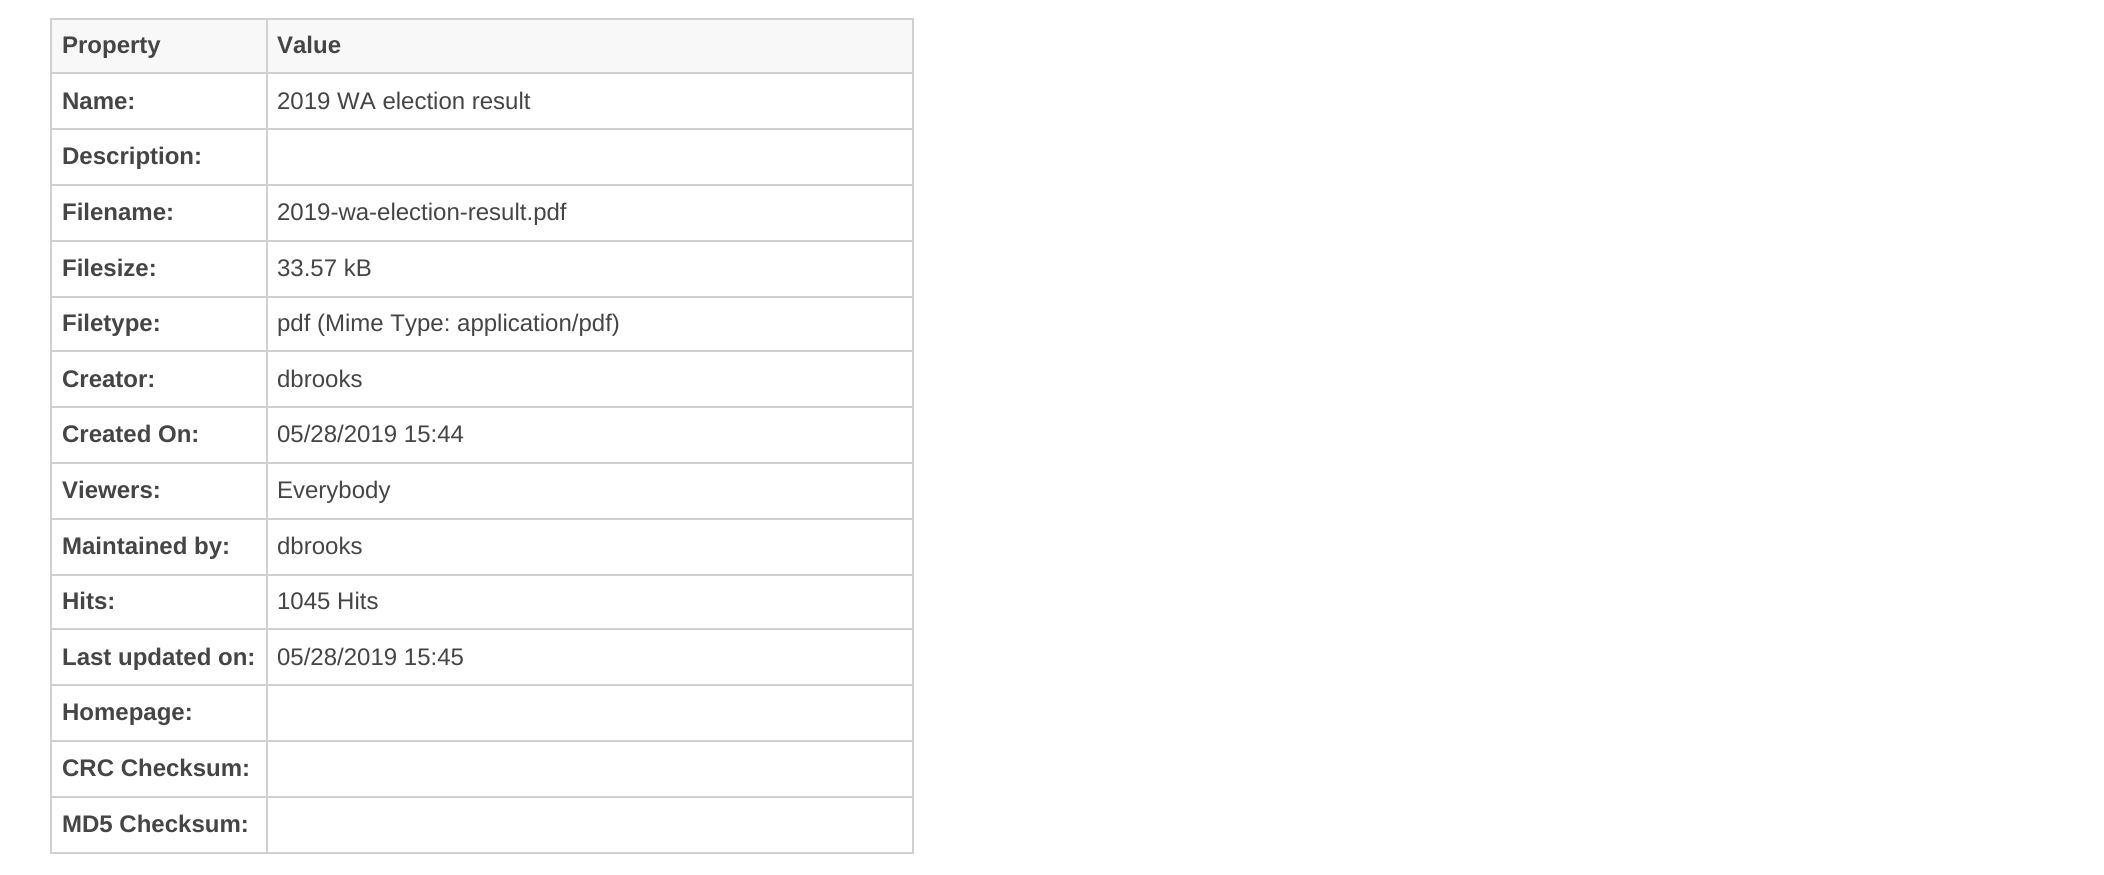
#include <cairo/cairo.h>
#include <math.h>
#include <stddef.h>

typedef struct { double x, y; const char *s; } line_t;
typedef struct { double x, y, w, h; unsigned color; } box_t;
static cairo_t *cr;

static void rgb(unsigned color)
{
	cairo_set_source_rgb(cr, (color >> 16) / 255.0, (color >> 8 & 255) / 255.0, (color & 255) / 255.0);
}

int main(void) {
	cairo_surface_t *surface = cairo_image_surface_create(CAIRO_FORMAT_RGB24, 2104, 875);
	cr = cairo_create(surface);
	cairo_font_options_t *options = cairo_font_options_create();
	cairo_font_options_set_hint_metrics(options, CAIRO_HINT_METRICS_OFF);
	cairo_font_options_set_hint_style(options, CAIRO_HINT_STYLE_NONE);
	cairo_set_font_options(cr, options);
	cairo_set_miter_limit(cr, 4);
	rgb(0xffffff);
	cairo_paint(cr);
	{
		static const box_t items[] = {
			{50, 18, 864, 2, 0xd0d0d0},
			{50, 18, 2, 836, 0xd0d0d0},
			{52, 20, 860, 52, 0xf8f8f8},
			{912, 18, 2, 836, 0xd0d0d0},
			{266, 852, 648, 2, 0xd0d0d0},
			{266, 796, 2, 58, 0xd0d0d0},
			{266, 796, 648, 2, 0xd0d0d0},
			{266, 740, 2, 58, 0xd0d0d0},
			{266, 740, 648, 2, 0xd0d0d0},
			{266, 684, 2, 58, 0xd0d0d0},
			{266, 684, 648, 2, 0xd0d0d0},
			{266, 628, 2, 58, 0xd0d0d0},
			{266, 628, 648, 2, 0xd0d0d0},
			{266, 574, 2, 56, 0xd0d0d0},
			{266, 574, 648, 2, 0xd0d0d0},
			{266, 518, 2, 58, 0xd0d0d0},
			{266, 518, 648, 2, 0xd0d0d0},
			{266, 462, 2, 58, 0xd0d0d0},
			{266, 462, 648, 2, 0xd0d0d0},
			{266, 406, 2, 58, 0xd0d0d0},
			{266, 406, 648, 2, 0xd0d0d0},
			{266, 350, 2, 58, 0xd0d0d0},
			{266, 350, 648, 2, 0xd0d0d0},
			{266, 296, 2, 56, 0xd0d0d0},
			{266, 296, 648, 2, 0xd0d0d0},
			{266, 240, 2, 58, 0xd0d0d0},
			{266, 240, 648, 2, 0xd0d0d0},
			{266, 184, 2, 58, 0xd0d0d0},
			{266, 184, 648, 2, 0xd0d0d0},
			{266, 128, 2, 58, 0xd0d0d0},
			{266, 128, 648, 2, 0xd0d0d0},
			{266, 72, 2, 58, 0xd0d0d0},
			{266, 72, 648, 2, 0xd0d0d0},
			{266, 18, 2, 56, 0xd0d0d0},
			{50, 72, 218, 2, 0xd0d0d0},
			{50, 128, 218, 2, 0xd0d0d0},
			{50, 184, 218, 2, 0xd0d0d0},
			{50, 240, 218, 2, 0xd0d0d0},
			{50, 296, 218, 2, 0xd0d0d0},
			{50, 350, 218, 2, 0xd0d0d0},
			{50, 406, 218, 2, 0xd0d0d0},
			{50, 462, 218, 2, 0xd0d0d0},
			{50, 518, 218, 2, 0xd0d0d0},
			{50, 574, 218, 2, 0xd0d0d0},
			{50, 628, 218, 2, 0xd0d0d0},
			{50, 684, 218, 2, 0xd0d0d0},
			{50, 740, 218, 2, 0xd0d0d0},
			{50, 796, 218, 2, 0xd0d0d0},
			{50, 852, 218, 2, 0xd0d0d0},
		};
		for (size_t i = 0; i < sizeof items / sizeof *items; i++) {
			rgb(items[i].color);
			cairo_rectangle(cr, items[i].x, items[i].y, items[i].w, items[i].h);
			cairo_fill(cr);
		}
	}
	cairo_select_font_face(cr, "Liberation Sans", CAIRO_FONT_SLANT_NORMAL, CAIRO_FONT_WEIGHT_BOLD);
	cairo_set_font_size(cr, 24);
	rgb(0x454545);
	{
		static const line_t items[] = {
			{62, 53, "Property"},
			{277, 53, "Value"},
			{62, 109, "Name:"},
		};
		for (size_t i = 0; i < sizeof items / sizeof *items; i++) {
			cairo_move_to(cr, items[i].x, items[i].y);
			cairo_show_text(cr, items[i].s);
		}
	}
	cairo_select_font_face(cr, "Liberation Sans", CAIRO_FONT_SLANT_NORMAL, CAIRO_FONT_WEIGHT_NORMAL);
	cairo_move_to(cr, 277, 109);
	cairo_show_text(cr, "2019 WA election result");
	cairo_select_font_face(cr, "Liberation Sans", CAIRO_FONT_SLANT_NORMAL, CAIRO_FONT_WEIGHT_BOLD);
	cairo_move_to(cr, 62, 164);
	cairo_show_text(cr, "Description:");
	cairo_move_to(cr, 62, 220);
	cairo_show_text(cr, "Filename:");
	cairo_select_font_face(cr, "Liberation Sans", CAIRO_FONT_SLANT_NORMAL, CAIRO_FONT_WEIGHT_NORMAL);
	cairo_move_to(cr, 277, 220);
	cairo_show_text(cr, "2019-wa-election-result.pdf");
	cairo_select_font_face(cr, "Liberation Sans", CAIRO_FONT_SLANT_NORMAL, CAIRO_FONT_WEIGHT_BOLD);
	cairo_move_to(cr, 62, 276);
	cairo_show_text(cr, "Filesize:");
	cairo_select_font_face(cr, "Liberation Sans", CAIRO_FONT_SLANT_NORMAL, CAIRO_FONT_WEIGHT_NORMAL);
	cairo_move_to(cr, 277, 276);
	cairo_show_text(cr, "33.57 kB");
	cairo_select_font_face(cr, "Liberation Sans", CAIRO_FONT_SLANT_NORMAL, CAIRO_FONT_WEIGHT_BOLD);
	cairo_move_to(cr, 62, 331);
	cairo_show_text(cr, "Filetype:");
	cairo_select_font_face(cr, "Liberation Sans", CAIRO_FONT_SLANT_NORMAL, CAIRO_FONT_WEIGHT_NORMAL);
	cairo_move_to(cr, 277, 331);
	cairo_show_text(cr, "pdf (Mime Type: application/pdf)");
	cairo_select_font_face(cr, "Liberation Sans", CAIRO_FONT_SLANT_NORMAL, CAIRO_FONT_WEIGHT_BOLD);
	cairo_move_to(cr, 62, 387);
	cairo_show_text(cr, "Creator:");
	cairo_select_font_face(cr, "Liberation Sans", CAIRO_FONT_SLANT_NORMAL, CAIRO_FONT_WEIGHT_NORMAL);
	cairo_move_to(cr, 277, 387);
	cairo_show_text(cr, "dbrooks");
	cairo_select_font_face(cr, "Liberation Sans", CAIRO_FONT_SLANT_NORMAL, CAIRO_FONT_WEIGHT_BOLD);
	cairo_move_to(cr, 62, 442);
	cairo_show_text(cr, "Created On:");
	cairo_select_font_face(cr, "Liberation Sans", CAIRO_FONT_SLANT_NORMAL, CAIRO_FONT_WEIGHT_NORMAL);
	cairo_move_to(cr, 277, 442);
	cairo_show_text(cr, "05/28/2019 15:44");
	cairo_select_font_face(cr, "Liberation Sans", CAIRO_FONT_SLANT_NORMAL, CAIRO_FONT_WEIGHT_BOLD);
	cairo_move_to(cr, 62, 498);
	cairo_show_text(cr, "Viewers:");
	cairo_select_font_face(cr, "Liberation Sans", CAIRO_FONT_SLANT_NORMAL, CAIRO_FONT_WEIGHT_NORMAL);
	cairo_move_to(cr, 277, 498);
	cairo_show_text(cr, "Everybody");
	cairo_select_font_face(cr, "Liberation Sans", CAIRO_FONT_SLANT_NORMAL, CAIRO_FONT_WEIGHT_BOLD);
	cairo_move_to(cr, 62, 554);
	cairo_show_text(cr, "Maintained by:");
	cairo_select_font_face(cr, "Liberation Sans", CAIRO_FONT_SLANT_NORMAL, CAIRO_FONT_WEIGHT_NORMAL);
	cairo_move_to(cr, 277, 554);
	cairo_show_text(cr, "dbrooks");
	cairo_select_font_face(cr, "Liberation Sans", CAIRO_FONT_SLANT_NORMAL, CAIRO_FONT_WEIGHT_BOLD);
	cairo_move_to(cr, 62, 609);
	cairo_show_text(cr, "Hits:");
	cairo_select_font_face(cr, "Liberation Sans", CAIRO_FONT_SLANT_NORMAL, CAIRO_FONT_WEIGHT_NORMAL);
	cairo_move_to(cr, 277, 609);
	cairo_show_text(cr, "1045 Hits");
	cairo_select_font_face(cr, "Liberation Sans", CAIRO_FONT_SLANT_NORMAL, CAIRO_FONT_WEIGHT_BOLD);
	cairo_move_to(cr, 62, 665);
	cairo_show_text(cr, "Last updated on:");
	cairo_select_font_face(cr, "Liberation Sans", CAIRO_FONT_SLANT_NORMAL, CAIRO_FONT_WEIGHT_NORMAL);
	cairo_move_to(cr, 277, 665);
	cairo_show_text(cr, "05/28/2019 15:45");
	cairo_select_font_face(cr, "Liberation Sans", CAIRO_FONT_SLANT_NORMAL, CAIRO_FONT_WEIGHT_BOLD);
	{
		static const line_t items[] = {
			{62, 720, "Homepage:"},
			{62, 776, "CRC Checksum:"},
			{62, 832, "MD5 Checksum:"},
		};
		for (size_t i = 0; i < sizeof items / sizeof *items; i++) {
			cairo_move_to(cr, items[i].x, items[i].y);
			cairo_show_text(cr, items[i].s);
		}
	}
	cairo_surface_write_to_png(surface, "page.png");
	cairo_font_options_destroy(options);
	cairo_destroy(cr);
	cairo_surface_destroy(surface);
	return 0;
}
